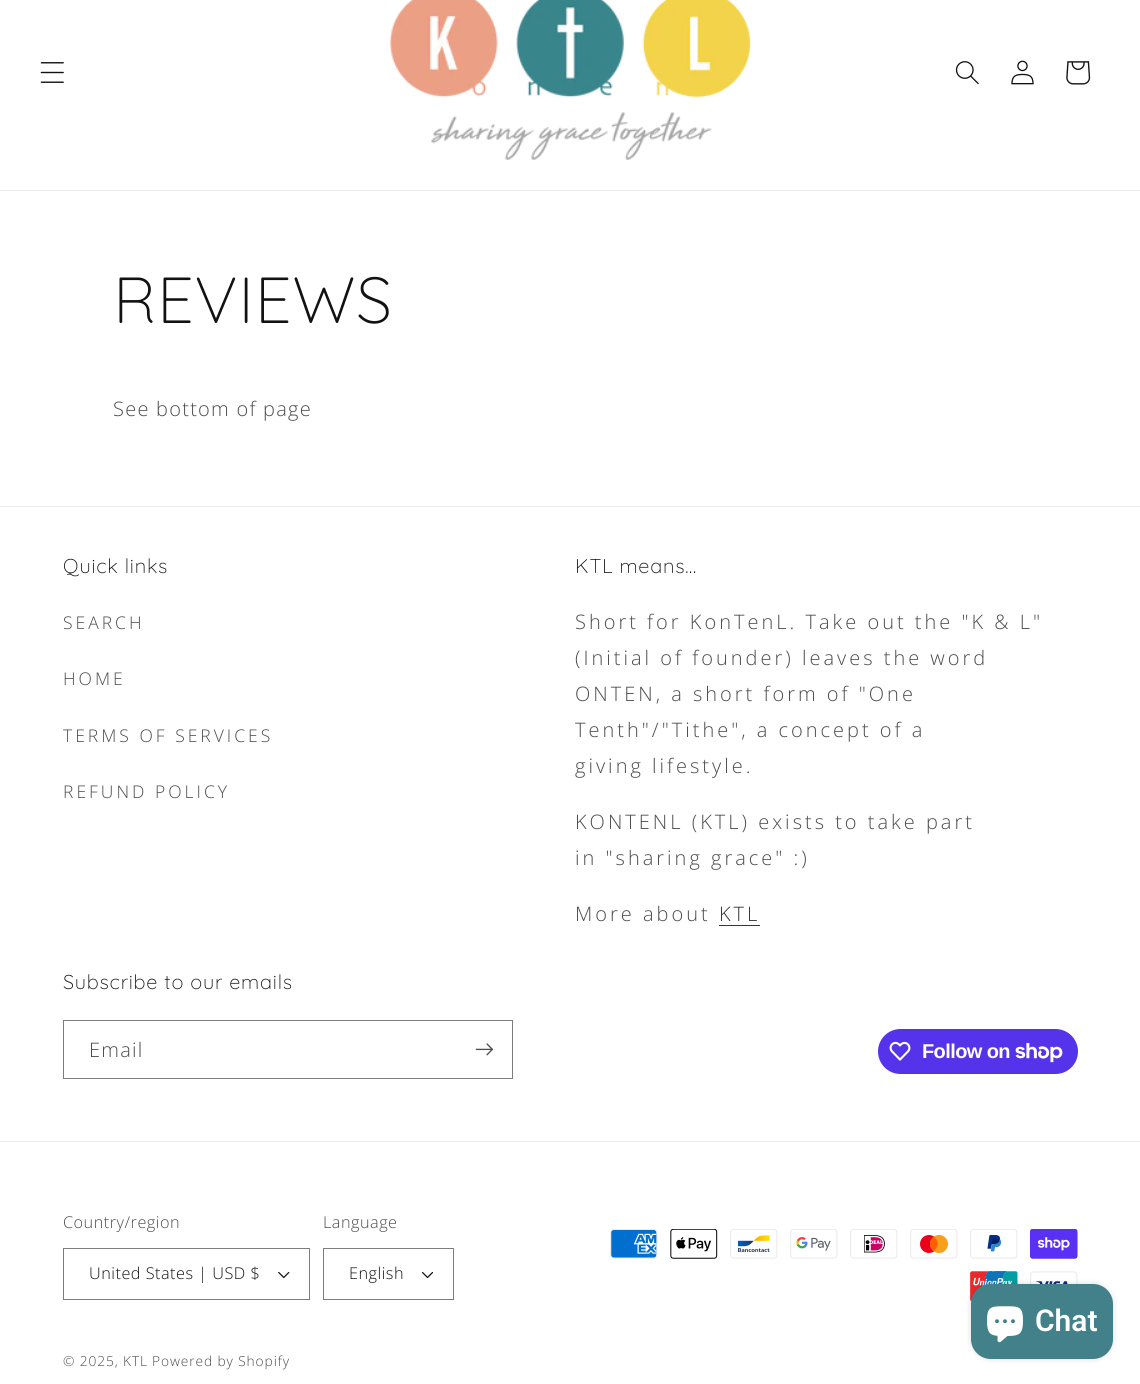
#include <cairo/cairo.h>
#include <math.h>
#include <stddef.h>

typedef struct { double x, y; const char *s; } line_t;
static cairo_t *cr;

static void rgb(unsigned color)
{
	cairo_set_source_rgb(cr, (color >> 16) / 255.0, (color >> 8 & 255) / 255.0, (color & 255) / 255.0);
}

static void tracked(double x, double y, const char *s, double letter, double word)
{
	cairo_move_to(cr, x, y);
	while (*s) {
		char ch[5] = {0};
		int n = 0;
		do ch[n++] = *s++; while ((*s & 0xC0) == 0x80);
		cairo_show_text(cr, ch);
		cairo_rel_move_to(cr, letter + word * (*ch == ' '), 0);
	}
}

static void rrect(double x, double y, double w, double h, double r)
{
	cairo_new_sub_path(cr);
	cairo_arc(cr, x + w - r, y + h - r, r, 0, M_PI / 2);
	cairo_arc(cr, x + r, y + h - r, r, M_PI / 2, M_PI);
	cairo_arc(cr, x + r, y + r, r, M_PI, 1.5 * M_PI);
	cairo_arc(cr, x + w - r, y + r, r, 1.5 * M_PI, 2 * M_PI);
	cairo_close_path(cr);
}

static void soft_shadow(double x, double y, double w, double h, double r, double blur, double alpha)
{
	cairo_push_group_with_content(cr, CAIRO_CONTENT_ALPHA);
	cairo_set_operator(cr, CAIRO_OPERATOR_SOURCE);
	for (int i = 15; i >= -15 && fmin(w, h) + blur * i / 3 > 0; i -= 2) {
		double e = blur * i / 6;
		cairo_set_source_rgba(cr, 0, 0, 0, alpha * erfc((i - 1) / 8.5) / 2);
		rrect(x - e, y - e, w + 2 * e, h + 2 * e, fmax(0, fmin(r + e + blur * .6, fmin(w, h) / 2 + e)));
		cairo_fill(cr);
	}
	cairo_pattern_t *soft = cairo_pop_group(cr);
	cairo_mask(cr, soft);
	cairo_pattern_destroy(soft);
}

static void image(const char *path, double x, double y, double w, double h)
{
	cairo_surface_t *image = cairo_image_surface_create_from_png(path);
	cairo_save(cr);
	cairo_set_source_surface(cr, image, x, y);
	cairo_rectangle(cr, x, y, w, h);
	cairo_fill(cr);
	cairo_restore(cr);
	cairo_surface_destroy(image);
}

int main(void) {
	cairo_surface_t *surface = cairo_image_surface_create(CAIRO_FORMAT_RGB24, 1140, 1384);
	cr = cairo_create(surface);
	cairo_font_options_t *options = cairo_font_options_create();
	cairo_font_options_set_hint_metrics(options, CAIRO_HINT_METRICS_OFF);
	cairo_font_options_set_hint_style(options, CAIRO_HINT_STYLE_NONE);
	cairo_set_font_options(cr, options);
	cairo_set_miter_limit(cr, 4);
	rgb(0xffffff);
	cairo_paint(cr);
	rgb(0xececec);
	cairo_rectangle(cr, 0, 190, 1140, 1);
	cairo_fill(cr);
	image("img/1.png", 40, 62, 24, 21);
	image("img/2.png", 389, 0, 363, 160);
	image("img/3.png", 955, 61, 24, 24);
	image("img/4.png", 1011, 60, 23, 25);
	image("img/5.png", 1066, 61, 25, 24);
	cairo_rectangle(cr, 0, 506, 1140, 1);
	cairo_fill(cr);
	rgb(0x363636);
	cairo_rectangle(cr, 719, 925, 41, 1);
	cairo_fill(cr);
	cairo_rectangle(cr, 63.5, 1020.5, 449, 58);
	rgb(0x7d7d7d);
	cairo_set_line_width(cr, 1);
	cairo_stroke(cr);
	image("img/6.png", 475, 1043, 18, 13);
	rgb(0x5433eb);
	rrect(878, 1029, 200, 45, 22.5);
	cairo_fill(cr);
	image("img/7.png", 889, 1041, 22, 20);
	image("img/8.png", 1015, 1043, 48, 20);
	rgb(0xececec);
	cairo_rectangle(cr, 0, 1141, 1140, 1);
	cairo_fill(cr);
	image("img/9.png", 278, 1271, 12, 8);
	cairo_rectangle(cr, 63.5, 1248.5, 246, 51);
	rgb(0x7d7d7d);
	cairo_stroke(cr);
	image("img/10.png", 421, 1271, 13, 8);
	cairo_rectangle(cr, 323.5, 1248.5, 130, 51);
	cairo_stroke(cr);
	image("img/11.png", 610, 1229, 48, 30);
	image("img/12.png", 670, 1229, 48, 30);
	image("img/13.png", 730, 1229, 48, 30);
	image("img/14.png", 790, 1229, 48, 30);
	image("img/15.png", 850, 1229, 48, 30);
	image("img/16.png", 910, 1229, 48, 30);
	image("img/17.png", 970, 1229, 48, 30);
	image("img/18.png", 1030, 1229, 48, 30);
	image("img/19.png", 970, 1271, 48, 30);
	image("img/20.png", 1030, 1271, 48, 13);
	rgb(0x000000);
	soft_shadow(971, 1284, 142, 75, 20, 3, 0.15);
	rgb(0x42818a);
	rrect(971, 1284, 142, 75, 20);
	cairo_fill(cr);
	image("img/21.png", 987, 1306, 36, 37);
	cairo_select_font_face(cr, "Quicksand Light", CAIRO_FONT_SLANT_NORMAL, CAIRO_FONT_WEIGHT_NORMAL);
	cairo_set_font_size(cr, 65);
	rgb(0x121212);
	tracked(113, 323, "REVIEWS", 0.75, 0);
	cairo_select_font_face(cr, "Open Sans Light", CAIRO_FONT_SLANT_NORMAL, CAIRO_FONT_WEIGHT_NORMAL);
	cairo_set_font_size(cr, 20);
	rgb(0x4d4d4d);
	tracked(113, 416, "See bottom of page", 1.25, 0);
	cairo_select_font_face(cr, "Quicksand Light", CAIRO_FONT_SLANT_NORMAL, CAIRO_FONT_WEIGHT_NORMAL);
	rgb(0x121212);
	tracked(63, 573, "Quick links", 0.75, 0);
	cairo_select_font_face(cr, "Open Sans Light", CAIRO_FONT_SLANT_NORMAL, CAIRO_FONT_WEIGHT_NORMAL);
	cairo_set_font_size(cr, 17.5);
	rgb(0x4d4d4d);
	{
		static const line_t items[] = {
			{63, 629, "SEARCH"},
			{63, 685, "HOME"},
			{63, 742, "TERMS OF SERVICES"},
			{63, 798, "REFUND POLICY"},
		};
		for (size_t i = 0; i < sizeof items / sizeof *items; i++) {
			tracked(items[i].x, items[i].y, items[i].s, 3, 0);
		}
	}
	cairo_select_font_face(cr, "Quicksand Light", CAIRO_FONT_SLANT_NORMAL, CAIRO_FONT_WEIGHT_NORMAL);
	cairo_set_font_size(cr, 20);
	rgb(0x121212);
	tracked(575, 573, "KTL means...", 0.75, 0);
	cairo_select_font_face(cr, "Open Sans Light", CAIRO_FONT_SLANT_NORMAL, CAIRO_FONT_WEIGHT_NORMAL);
	rgb(0x4d4d4d);
	{
		static const line_t items[] = {
			{575, 629, "Short for KonTenL. Take out the \"K & L\""},
			{575, 665, "(Initial of founder) leaves the word"},
			{575, 701, "ONTEN, a short form of \"One"},
			{575, 737, "Tenth\"/\"Tithe\", a concept of a"},
			{575, 773, "giving lifestyle."},
			{575, 829, "KONTENL (KTL) exists to take part"},
			{575, 865, "in \"sharing grace\" :)"},
			{575, 921, "More about"},
		};
		for (size_t i = 0; i < sizeof items / sizeof *items; i++) {
			tracked(items[i].x, items[i].y, items[i].s, 3, 0);
		}
	}
	rgb(0x363636);
	tracked(719, 921, "KTL", 3, 0);
	cairo_select_font_face(cr, "Quicksand Light", CAIRO_FONT_SLANT_NORMAL, CAIRO_FONT_WEIGHT_NORMAL);
	rgb(0x121212);
	tracked(63, 989, "Subscribe to our emails", 0.75, 0);
	cairo_select_font_face(cr, "Open Sans Light", CAIRO_FONT_SLANT_NORMAL, CAIRO_FONT_WEIGHT_NORMAL);
	rgb(0x4d4d4d);
	tracked(89, 1057, "Email", 1.25, 0);
	cairo_select_font_face(cr, "Liberation Sans", CAIRO_FONT_SLANT_NORMAL, CAIRO_FONT_WEIGHT_BOLD);
	rgb(0xffffff);
	tracked(922, 1058, "Follow on", -0.6, 0);
	cairo_select_font_face(cr, "Open Sans Light", CAIRO_FONT_SLANT_NORMAL, CAIRO_FONT_WEIGHT_NORMAL);
	cairo_set_font_size(cr, 16.25);
	rgb(0x4d4d4d);
	tracked(63, 1228, "Country/region", 0.5, 0);
	rgb(0x121212);
	tracked(89, 1279, "United States | USD $", 0.5, 0);
	rgb(0x4d4d4d);
	tracked(323, 1228, "Language", 0.5, 0);
	rgb(0x121212);
	tracked(349, 1279, "English", 0.5, 0);
	cairo_set_font_size(cr, 13.75);
	rgb(0x4d4d4d);
	tracked(63, 1366, "© 2025, KTL", 0.9, 0);
	tracked(152, 1366, "Powered by Shopify", 0.9, 0);
	cairo_select_font_face(cr, "Roboto SemiBold", CAIRO_FONT_SLANT_NORMAL, CAIRO_FONT_WEIGHT_NORMAL);
	cairo_set_font_size(cr, 30);
	rgb(0xffffff);
	cairo_move_to(cr, 1035, 1331);
	cairo_show_text(cr, "Chat");
	cairo_surface_write_to_png(surface, "page.png");
	cairo_font_options_destroy(options);
	cairo_destroy(cr);
	cairo_surface_destroy(surface);
	return 0;
}
